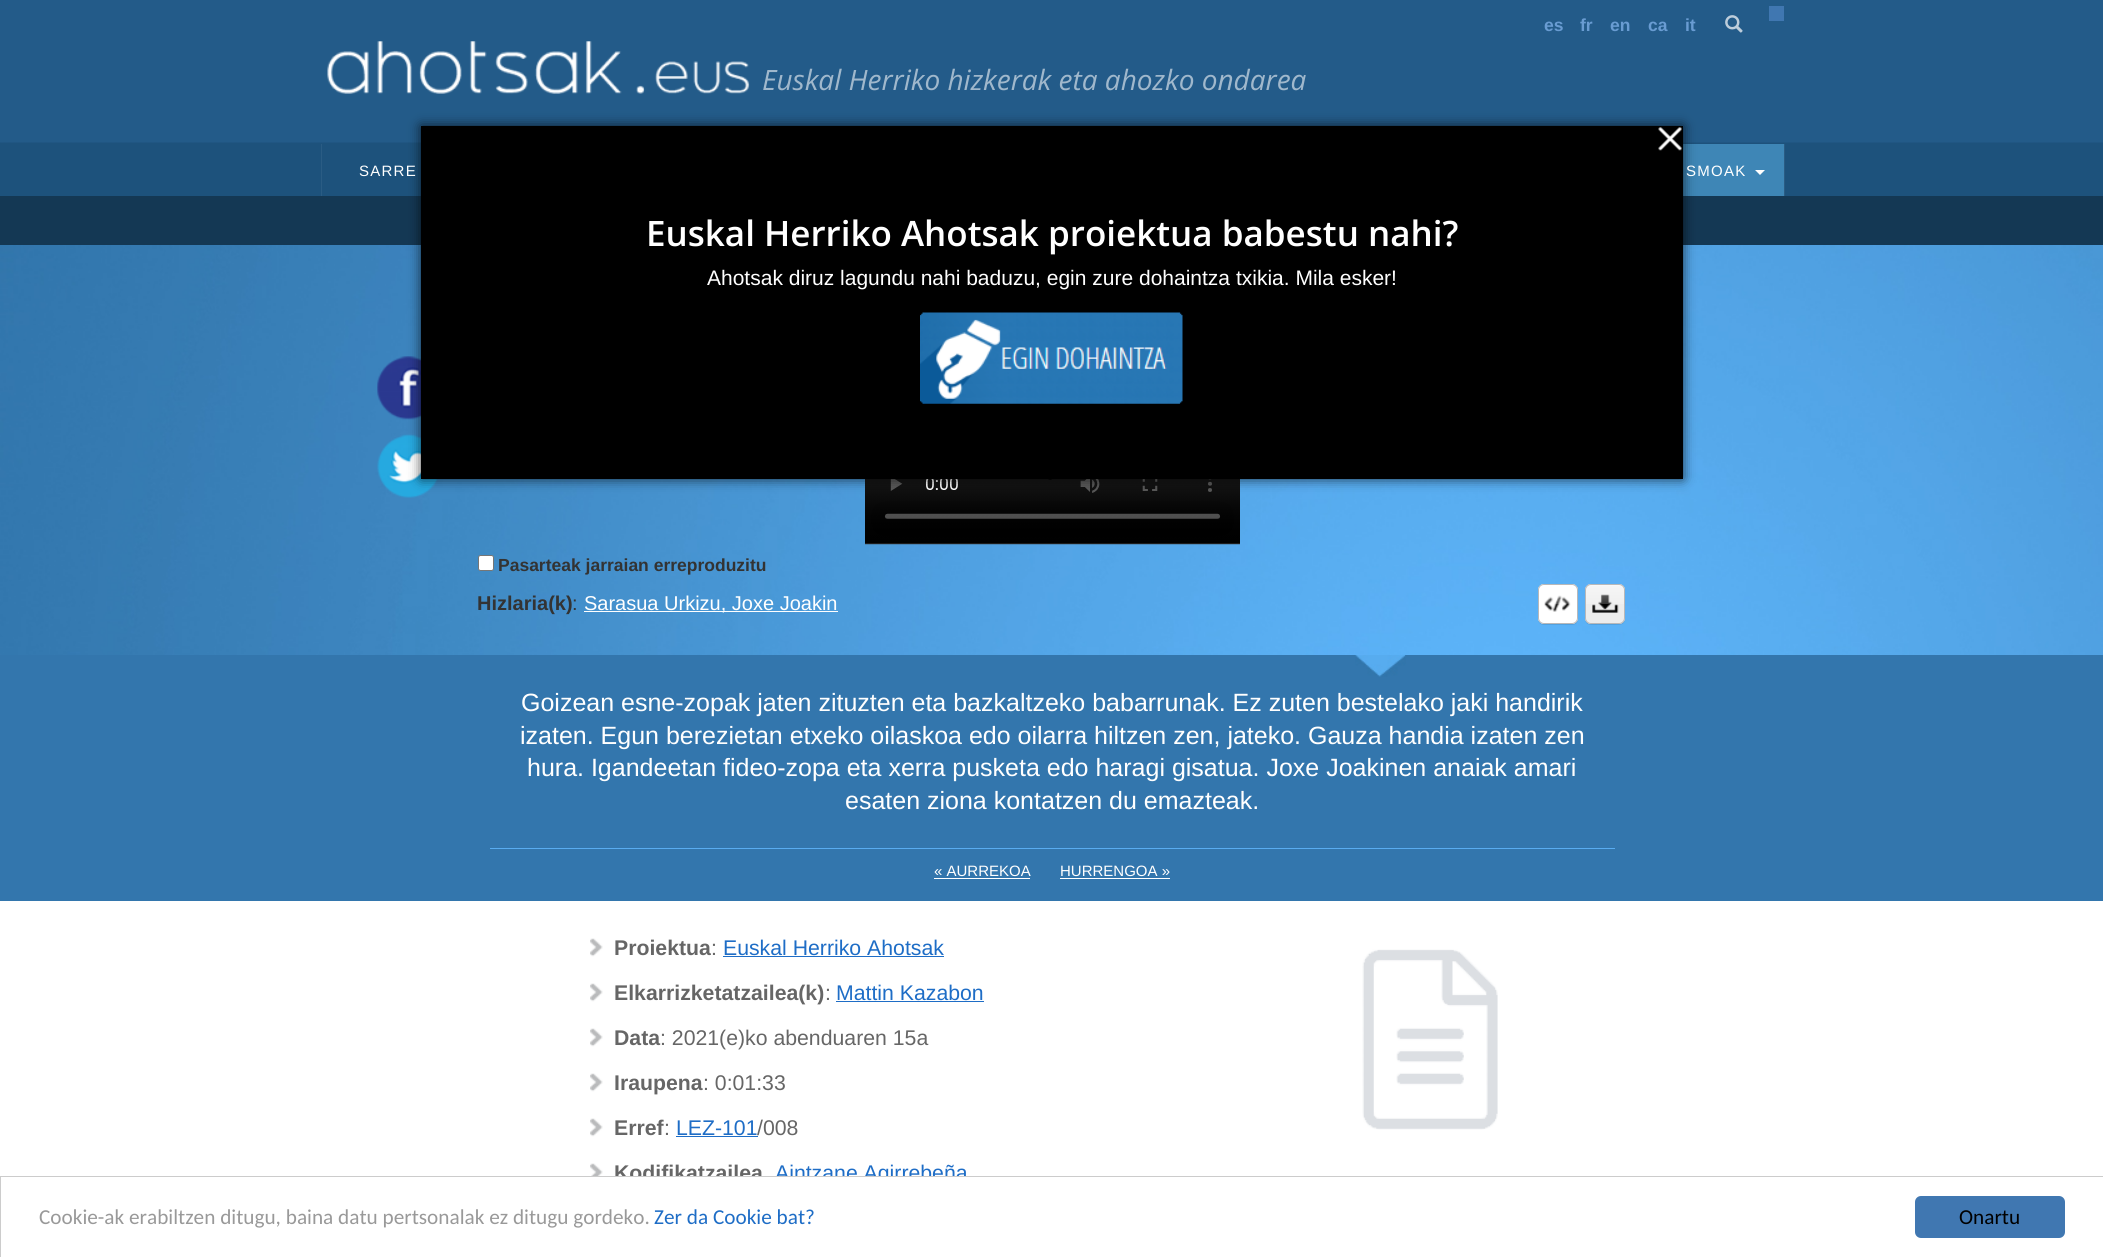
#include <cairo/cairo.h>
#include <math.h>
#include <stddef.h>

typedef struct { double x, y; const char *s; } line_t;
typedef struct { double x, y, w, h; unsigned color; } box_t;
static cairo_t *cr;

static void rgb(unsigned color)
{
	cairo_set_source_rgb(cr, (color >> 16) / 255.0, (color >> 8 & 255) / 255.0, (color & 255) / 255.0);
}

static void tracked(double x, double y, const char *s, double letter, double word)
{
	cairo_move_to(cr, x, y);
	while (*s) {
		char ch[5] = {0};
		int n = 0;
		do ch[n++] = *s++; while ((*s & 0xC0) == 0x80);
		cairo_show_text(cr, ch);
		cairo_rel_move_to(cr, letter + word * (*ch == ' '), 0);
	}
}

static void rrect(double x, double y, double w, double h, double r)
{
	cairo_new_sub_path(cr);
	cairo_arc(cr, x + w - r, y + h - r, r, 0, M_PI / 2);
	cairo_arc(cr, x + r, y + h - r, r, M_PI / 2, M_PI);
	cairo_arc(cr, x + r, y + r, r, M_PI, 1.5 * M_PI);
	cairo_arc(cr, x + w - r, y + r, r, 1.5 * M_PI, 2 * M_PI);
	cairo_close_path(cr);
}

static void soft_shadow(double x, double y, double w, double h, double r, double blur, double alpha)
{
	cairo_push_group_with_content(cr, CAIRO_CONTENT_ALPHA);
	cairo_set_operator(cr, CAIRO_OPERATOR_SOURCE);
	for (int i = 15; i >= -15 && fmin(w, h) + blur * i / 3 > 0; i -= 2) {
		double e = blur * i / 6;
		cairo_set_source_rgba(cr, 0, 0, 0, alpha * erfc((i - 1) / 8.5) / 2);
		rrect(x - e, y - e, w + 2 * e, h + 2 * e, fmax(0, fmin(r + e + blur * .6, fmin(w, h) / 2 + e)));
		cairo_fill(cr);
	}
	cairo_pattern_t *soft = cairo_pop_group(cr);
	cairo_mask(cr, soft);
	cairo_pattern_destroy(soft);
}

static void image(const char *path, double x, double y, double w, double h)
{
	cairo_surface_t *image = cairo_image_surface_create_from_png(path);
	cairo_save(cr);
	cairo_set_source_surface(cr, image, x, y);
	cairo_rectangle(cr, x, y, w, h);
	cairo_fill(cr);
	cairo_restore(cr);
	cairo_surface_destroy(image);
}

int main(void) {
	cairo_surface_t *surface = cairo_image_surface_create(CAIRO_FORMAT_RGB24, 2103, 1257);
	cr = cairo_create(surface);
	cairo_font_options_t *options = cairo_font_options_create();
	cairo_font_options_set_hint_metrics(options, CAIRO_HINT_METRICS_OFF);
	cairo_font_options_set_hint_style(options, CAIRO_HINT_STYLE_NONE);
	cairo_set_font_options(cr, options);
	cairo_set_miter_limit(cr, 4);
	cairo_pattern_t *gradient;
	rgb(0xffffff);
	cairo_paint(cr);
	image("img/1.png", 0, 0, 2103, 196);
	rgb(0x4077b1);
	cairo_rectangle(cr, 1769, 6, 15, 15);
	cairo_fill(cr);
	image("img/2.png", 1725, 15, 18, 18);
	image("img/3.png", 327, 41, 423, 53);
	{
		static const box_t items[] = {
			{321, 144, 1, 52, 0x2a5c84},
			{1683, 144, 101, 52, 0x3e86b6},
			{1784, 144, 1, 52, 0x2a5c84},
		};
		for (size_t i = 0; i < sizeof items / sizeof *items; i++) {
			rgb(items[i].color);
			cairo_rectangle(cr, items[i].x, items[i].y, items[i].w, items[i].h);
			cairo_fill(cr);
		}
	}
	rgb(0xffffff);
	cairo_new_path(cr);
	cairo_move_to(cr, 1755, 170);
	cairo_line_to(cr, 1765, 170);
	cairo_line_to(cr, 1760, 175);
	cairo_close_path(cr);
	cairo_fill(cr);
	rgb(0x143854);
	cairo_rectangle(cr, 0, 196, 2103, 49);
	cairo_fill(cr);
	image("img/4.png", 0, 245, 2103, 410);
	image("img/5.png", 377, 356, 44, 64);
	image("img/6.png", 377, 434, 62, 64);
	image("img/7.png", 865, 479, 375, 66);
	rgb(0xffffff);
	rrect(478.5, 555.5, 15, 15, 2);
	cairo_fill_preserve(cr);
	rgb(0x767676);
	cairo_set_line_width(cr, 1);
	cairo_stroke(cr);
	rgb(0xffffff);
	cairo_rectangle(cr, 584, 611, 254, 1);
	cairo_fill(cr);
	cairo_set_source_rgba(cr, 0, 0, 0, 0.1);
	cairo_new_path(cr);
	cairo_move_to(cr, 1538, 620);
	cairo_curve_to(cr, 1538.5, 623, 1541, 625, 1544, 625);
	cairo_line_to(cr, 1572, 625);
	cairo_curve_to(cr, 1575.5, 625, 1578, 622.5, 1578, 619);
	cairo_line_to(cr, 1578, 591);
	cairo_curve_to(cr, 1578, 590, 1577.5, 589, 1577, 588);
	cairo_line_to(cr, 1577.5, 590);
	cairo_line_to(cr, 1577.5, 617.5);
	cairo_curve_to(cr, 1577.5, 621, 1574.5, 624, 1571, 624);
	cairo_line_to(cr, 1544, 624);
	cairo_curve_to(cr, 1541.5, 624, 1539, 622.5, 1538, 620);
	cairo_close_path(cr);
	cairo_fill(cr);
	rgb(0xffffff);
	rrect(1538, 584, 40, 40, 6);
	cairo_fill(cr);
	image("img/8.png", 1544, 595, 27, 17);
	rrect(1538.5, 584.5, 39, 39, 5.5);
	rgb(0xb8b8b9);
	cairo_stroke(cr);
	gradient = cairo_pattern_create_linear(1558, 585, 1558, 604);
	cairo_pattern_add_color_stop_rgba(gradient, 0, 1, 1, 1, 0.5);
	cairo_pattern_add_color_stop_rgba(gradient, 1, 1, 1, 1, 0.2);
	cairo_set_source(cr, gradient);
	cairo_pattern_destroy(gradient);
	cairo_new_path(cr);
	cairo_move_to(cr, 1545, 585);
	cairo_line_to(cr, 1570, 585);
	cairo_curve_to(cr, 1573.5, 585, 1576, 587.5, 1576, 591);
	cairo_line_to(cr, 1576, 604);
	cairo_line_to(cr, 1539, 604);
	cairo_line_to(cr, 1539, 591);
	cairo_curve_to(cr, 1539, 587.5, 1541.5, 585, 1545, 585);
	cairo_close_path(cr);
	cairo_fill(cr);
	cairo_set_source_rgba(cr, 0, 0, 0, 0.1);
	cairo_new_path(cr);
	cairo_move_to(cr, 1585, 618);
	cairo_curve_to(cr, 1585, 625, 1589, 625, 1596, 625);
	cairo_line_to(cr, 1614, 625);
	cairo_curve_to(cr, 1621, 625, 1625, 625, 1625, 618);
	cairo_curve_to(cr, 1625, 621, 1622, 624, 1619, 624);
	cairo_line_to(cr, 1591, 624);
	cairo_curve_to(cr, 1588, 624, 1585, 621, 1585, 618);
	cairo_close_path(cr);
	cairo_fill(cr);
	rgb(0xececec);
	rrect(1585, 584, 40, 40, 6);
	cairo_fill(cr);
	image("img/9.png", 1592, 594, 27, 19);
	rgb(0xf2f2f2);
	cairo_new_path(cr);
	cairo_move_to(cr, 1591, 586);
	cairo_line_to(cr, 1619, 586);
	cairo_curve_to(cr, 1622, 586, 1624, 588, 1624, 591);
	cairo_curve_to(cr, 1624, 584.5, 1619.5, 585, 1614.5, 585);
	cairo_line_to(cr, 1595.5, 585);
	cairo_curve_to(cr, 1590.5, 585, 1586, 584.5, 1586, 591);
	cairo_curve_to(cr, 1586, 588, 1588, 586, 1591, 586);
	cairo_close_path(cr);
	cairo_fill(cr);
	rrect(1585.5, 584.5, 39, 39, 5.5);
	rgb(0xb8b8b9);
	cairo_stroke(cr);
	gradient = cairo_pattern_create_linear(1605, 585, 1605, 604);
	cairo_pattern_add_color_stop_rgba(gradient, 0, 1, 1, 1, 0.5);
	cairo_pattern_add_color_stop_rgba(gradient, 1, 1, 1, 1, 0.2);
	cairo_set_source(cr, gradient);
	cairo_pattern_destroy(gradient);
	cairo_new_path(cr);
	cairo_move_to(cr, 1592, 585);
	cairo_line_to(cr, 1618, 585);
	cairo_curve_to(cr, 1621.5, 585, 1624, 587.5, 1624, 591);
	cairo_line_to(cr, 1624, 604);
	cairo_line_to(cr, 1586, 604);
	cairo_line_to(cr, 1586, 591);
	cairo_curve_to(cr, 1586, 587.5, 1588.5, 585, 1592, 585);
	cairo_close_path(cr);
	cairo_fill(cr);
	rgb(0x3376ad);
	cairo_rectangle(cr, 0, 655, 2103, 246);
	cairo_fill(cr);
	image("img/10.png", 1355, 655, 51, 22);
	{
		static const box_t items[] = {
			{490, 848, 1125, 1, 0x59acf0},
			{934, 878, 96, 1, 0xffffff},
			{1060, 878, 110, 1, 0xffffff},
		};
		for (size_t i = 0; i < sizeof items / sizeof *items; i++) {
			rgb(items[i].color);
			cairo_rectangle(cr, items[i].x, items[i].y, items[i].w, items[i].h);
			cairo_fill(cr);
		}
	}
	image("img/11.png", 1362, 949, 136, 181);
	image("img/12.png", 590, 938, 13, 19);
	rgb(0x1e6dc6);
	cairo_rectangle(cr, 723, 956, 221, 1);
	cairo_fill(cr);
	image("img/12.png", 590, 983, 13, 19);
	cairo_rectangle(cr, 836, 1001, 148, 1);
	cairo_fill(cr);
	image("img/12.png", 590, 1028, 13, 19);
	image("img/12.png", 590, 1073, 13, 19);
	image("img/12.png", 590, 1118, 13, 19);
	cairo_rectangle(cr, 676, 1136, 82, 1);
	cairo_fill(cr);
	image("img/13.png", 590, 1163, 13, 13);
	rgb(0x010101);
	soft_shadow(421, 126, 1262, 353, 0, 6, 0.7);
	rgb(0x000000);
	cairo_rectangle(cr, 421, 126, 1262, 353);
	cairo_fill(cr);
	image("img/14.png", 1658, 127, 24, 24);
	image("img/15.png", 920, 312, 263, 92);
	cairo_select_font_face(cr, "Liberation Sans", CAIRO_FONT_SLANT_NORMAL, CAIRO_FONT_WEIGHT_BOLD);
	cairo_set_font_size(cr, 17.5);
	rgb(0x699cd2);
	{
		static const line_t items[] = {
			{1544, 31, "es"},
			{1580, 31, "fr"},
			{1610, 31, "en"},
			{1648, 31, "ca"},
			{1685, 31, "it"},
		};
		for (size_t i = 0; i < sizeof items / sizeof *items; i++) {
			cairo_move_to(cr, items[i].x, items[i].y);
			cairo_show_text(cr, items[i].s);
		}
	}
	cairo_select_font_face(cr, "Open Sans", CAIRO_FONT_SLANT_ITALIC, CAIRO_FONT_WEIGHT_NORMAL);
	cairo_set_font_size(cr, 28);
	rgb(0xa0b8cc);
	cairo_move_to(cr, 762, 90);
	cairo_show_text(cr, "Euskal Herriko hizkerak eta ahozko ondarea");
	cairo_select_font_face(cr, "Liberation Sans", CAIRO_FONT_SLANT_NORMAL, CAIRO_FONT_WEIGHT_NORMAL);
	cairo_set_font_size(cr, 15);
	rgb(0xffffff);
	tracked(359, 176, "SARRE", 1.25, 0);
	tracked(1686, 176, "SMOAK", 1.25, 0);
	cairo_select_font_face(cr, "Liberation Sans", CAIRO_FONT_SLANT_NORMAL, CAIRO_FONT_WEIGHT_BOLD);
	cairo_set_font_size(cr, 17.5);
	rgb(0x333333);
	cairo_move_to(cr, 498, 571);
	cairo_show_text(cr, "Pasarteak jarraian erreproduzitu");
	cairo_set_font_size(cr, 20);
	cairo_move_to(cr, 477, 610);
	cairo_show_text(cr, "Hizlaria(k)");
	cairo_select_font_face(cr, "Liberation Sans", CAIRO_FONT_SLANT_NORMAL, CAIRO_FONT_WEIGHT_NORMAL);
	cairo_move_to(cr, 572, 610);
	cairo_show_text(cr, ":");
	rgb(0xffffff);
	cairo_move_to(cr, 584, 610);
	cairo_show_text(cr, "Sarasua Urkizu, Joxe Joakin");
	cairo_set_font_size(cr, 25);
	{
		static const line_t items[] = {
			{521, 711, "Goizean esne-zopak jaten zituzten eta bazkaltzeko babarrunak. Ez zuten bestelako jaki handirik"},
			{520, 744, "izaten. Egun berezietan etxeko oilaskoa edo oilarra hiltzen zen, jateko. Gauza handia izaten zen"},
			{527, 776, "hura. Igandeetan fideo-zopa eta xerra pusketa edo haragi gisatua. Joxe Joakinen anaiak amari"},
			{845, 809, "esaten ziona kontatzen du emazteak."},
		};
		for (size_t i = 0; i < sizeof items / sizeof *items; i++) {
			cairo_move_to(cr, items[i].x, items[i].y);
			cairo_show_text(cr, items[i].s);
		}
	}
	cairo_set_font_size(cr, 15);
	cairo_move_to(cr, 934, 876);
	cairo_show_text(cr, "« AURREKOA");
	cairo_move_to(cr, 1060, 876);
	cairo_show_text(cr, "HURRENGOA »");
	cairo_select_font_face(cr, "Liberation Sans", CAIRO_FONT_SLANT_NORMAL, CAIRO_FONT_WEIGHT_BOLD);
	cairo_set_font_size(cr, 21.25);
	rgb(0x666666);
	cairo_move_to(cr, 614, 955);
	cairo_show_text(cr, "Proiektua");
	cairo_select_font_face(cr, "Liberation Sans", CAIRO_FONT_SLANT_NORMAL, CAIRO_FONT_WEIGHT_NORMAL);
	cairo_move_to(cr, 711, 955);
	cairo_show_text(cr, ":");
	rgb(0x1e6dc6);
	cairo_move_to(cr, 723, 955);
	cairo_show_text(cr, "Euskal Herriko Ahotsak");
	cairo_select_font_face(cr, "Liberation Sans", CAIRO_FONT_SLANT_NORMAL, CAIRO_FONT_WEIGHT_BOLD);
	rgb(0x666666);
	cairo_move_to(cr, 614, 1000);
	cairo_show_text(cr, "Elkarrizketatzailea(k)");
	cairo_select_font_face(cr, "Liberation Sans", CAIRO_FONT_SLANT_NORMAL, CAIRO_FONT_WEIGHT_NORMAL);
	cairo_move_to(cr, 825, 1000);
	cairo_show_text(cr, ":");
	rgb(0x1e6dc6);
	cairo_move_to(cr, 836, 1000);
	cairo_show_text(cr, "Mattin Kazabon");
	cairo_select_font_face(cr, "Liberation Sans", CAIRO_FONT_SLANT_NORMAL, CAIRO_FONT_WEIGHT_BOLD);
	rgb(0x666666);
	cairo_move_to(cr, 614, 1045);
	cairo_show_text(cr, "Data");
	cairo_select_font_face(cr, "Liberation Sans", CAIRO_FONT_SLANT_NORMAL, CAIRO_FONT_WEIGHT_NORMAL);
	cairo_move_to(cr, 660, 1045);
	cairo_show_text(cr, ": 2021(e)ko abenduaren 15a");
	cairo_select_font_face(cr, "Liberation Sans", CAIRO_FONT_SLANT_NORMAL, CAIRO_FONT_WEIGHT_BOLD);
	cairo_move_to(cr, 614, 1090);
	cairo_show_text(cr, "Iraupena");
	cairo_select_font_face(cr, "Liberation Sans", CAIRO_FONT_SLANT_NORMAL, CAIRO_FONT_WEIGHT_NORMAL);
	cairo_move_to(cr, 703, 1090);
	cairo_show_text(cr, ": 0:01:33");
	cairo_select_font_face(cr, "Liberation Sans", CAIRO_FONT_SLANT_NORMAL, CAIRO_FONT_WEIGHT_BOLD);
	cairo_move_to(cr, 614, 1135);
	cairo_show_text(cr, "Erref");
	cairo_select_font_face(cr, "Liberation Sans", CAIRO_FONT_SLANT_NORMAL, CAIRO_FONT_WEIGHT_NORMAL);
	cairo_move_to(cr, 664, 1135);
	cairo_show_text(cr, ":");
	rgb(0x1e6dc6);
	cairo_move_to(cr, 676, 1135);
	cairo_show_text(cr, "LEZ-101");
	rgb(0x666666);
	cairo_move_to(cr, 757, 1135);
	cairo_show_text(cr, "/008");
	cairo_select_font_face(cr, "Liberation Sans", CAIRO_FONT_SLANT_NORMAL, CAIRO_FONT_WEIGHT_BOLD);
	cairo_move_to(cr, 614, 1180);
	cairo_show_text(cr, "Kodifikatzailea");
	cairo_select_font_face(cr, "Liberation Sans", CAIRO_FONT_SLANT_NORMAL, CAIRO_FONT_WEIGHT_NORMAL);
	rgb(0x1e6dc6);
	cairo_move_to(cr, 775, 1180);
	cairo_show_text(cr, "Aintzane Agirrebeña");
	cairo_select_font_face(cr, "Open Sans SemiBold", CAIRO_FONT_SLANT_NORMAL, CAIRO_FONT_WEIGHT_NORMAL);
	cairo_set_font_size(cr, 35);
	rgb(0xffffff);
	cairo_move_to(cr, 646, 246);
	cairo_show_text(cr, "Euskal Herriko Ahotsak proiektua babestu nahi?");
	cairo_select_font_face(cr, "Liberation Sans", CAIRO_FONT_SLANT_NORMAL, CAIRO_FONT_WEIGHT_NORMAL);
	cairo_set_font_size(cr, 21);
	cairo_move_to(cr, 707, 285);
	cairo_show_text(cr, "Ahotsak diruz lagundu nahi baduzu, egin zure dohaintza txikia. Mila esker!");
	cairo_rectangle(cr, 615, 1177, 353, 8);
	cairo_fill(cr);
	cairo_rectangle(cr, 0.5, 1176.5, 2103, 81);
	rgb(0xcccccc);
	cairo_stroke(cr);
	cairo_select_font_face(cr, "Carlito", CAIRO_FONT_SLANT_NORMAL, CAIRO_FONT_WEIGHT_NORMAL);
	cairo_set_font_size(cr, 21.25);
	rgb(0x999999);
	cairo_move_to(cr, 39, 1224);
	cairo_show_text(cr, "Cookie-ak erabiltzen ditugu, baina datu pertsonalak ez ditugu gordeko.");
	rgb(0x1e6dc6);
	cairo_move_to(cr, 654, 1224);
	cairo_show_text(cr, "Zer da Cookie bat?");
	rgb(0x4077b1);
	rrect(1915, 1196, 150, 42, 6);
	cairo_fill(cr);
	rgb(0x000000);
	cairo_move_to(cr, 1959, 1224);
	cairo_show_text(cr, "Onartu");
	cairo_surface_write_to_png(surface, "page.png");
	cairo_font_options_destroy(options);
	cairo_destroy(cr);
	cairo_surface_destroy(surface);
	return 0;
}
